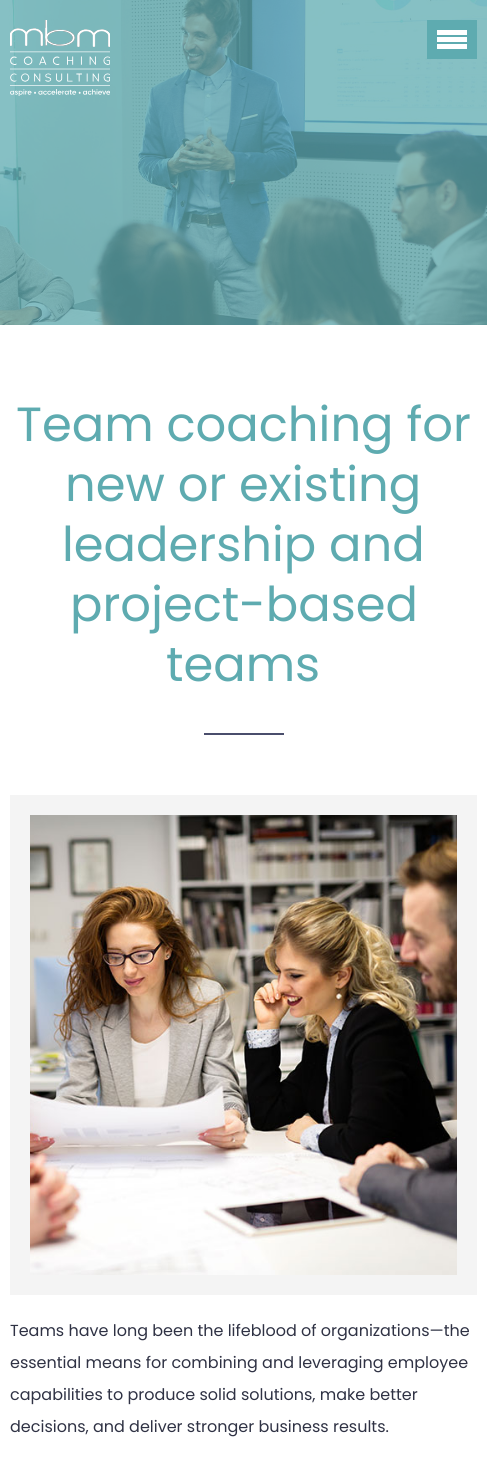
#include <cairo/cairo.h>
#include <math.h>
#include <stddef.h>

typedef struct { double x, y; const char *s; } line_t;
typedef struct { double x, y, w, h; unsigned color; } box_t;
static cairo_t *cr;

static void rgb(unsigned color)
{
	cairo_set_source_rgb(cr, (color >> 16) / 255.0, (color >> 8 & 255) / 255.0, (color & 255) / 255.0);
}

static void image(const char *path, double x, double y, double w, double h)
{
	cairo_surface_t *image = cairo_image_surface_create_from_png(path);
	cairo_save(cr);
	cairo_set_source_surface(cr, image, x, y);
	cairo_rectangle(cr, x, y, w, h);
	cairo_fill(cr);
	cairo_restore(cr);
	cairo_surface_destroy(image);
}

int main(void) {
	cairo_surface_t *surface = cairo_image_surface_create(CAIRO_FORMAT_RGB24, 487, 1467);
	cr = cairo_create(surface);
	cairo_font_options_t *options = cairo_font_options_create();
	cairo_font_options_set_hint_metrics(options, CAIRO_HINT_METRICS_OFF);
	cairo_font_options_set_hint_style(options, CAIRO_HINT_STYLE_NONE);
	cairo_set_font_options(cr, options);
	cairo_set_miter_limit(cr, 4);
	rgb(0xffffff);
	cairo_paint(cr);
	image("img/1.png", 0, 0, 487, 325);
	image("img/2.png", 10, 20, 100, 76);
	{
		static const box_t items[] = {
			{427, 20, 50, 39, 0x5eabb0},
			{437, 30, 30, 5, 0xffffff},
			{437, 37, 30, 5, 0xffffff},
			{437, 44, 30, 5, 0xffffff},
			{204, 733, 80, 2, 0x4a4e6c},
		};
		for (size_t i = 0; i < sizeof items / sizeof *items; i++) {
			rgb(items[i].color);
			cairo_rectangle(cr, items[i].x, items[i].y, items[i].w, items[i].h);
			cairo_fill(cr);
		}
	}
	image("img/3.png", 30, 815, 427, 460);
	cairo_rectangle(cr, 20, 805, 447, 480);
	rgb(0xf4f4f4);
	cairo_set_line_width(cr, 20);
	cairo_stroke(cr);
	cairo_select_font_face(cr, "Poppins", CAIRO_FONT_SLANT_NORMAL, CAIRO_FONT_WEIGHT_NORMAL);
	cairo_set_font_size(cr, 48);
	rgb(0x5eabb0);
	{
		static const line_t items[] = {
			{16, 441, "Team coaching for"},
			{65, 501, "new or existing"},
			{62, 561, "leadership and"},
			{70, 621, "project-based"},
			{166, 681, "teams"},
		};
		for (size_t i = 0; i < sizeof items / sizeof *items; i++) {
			cairo_move_to(cr, items[i].x, items[i].y);
			cairo_show_text(cr, items[i].s);
		}
	}
	cairo_set_font_size(cr, 16);
	rgb(0x2f3244);
	{
		static const line_t items[] = {
			{10, 1336, "Teams have long been the lifeblood of organizations—the"},
			{10, 1368, "essential means for combining and leveraging employee"},
			{10, 1400, "capabilities to produce solid solutions, make better"},
			{10, 1432, "decisions, and deliver stronger business results."},
		};
		for (size_t i = 0; i < sizeof items / sizeof *items; i++) {
			cairo_move_to(cr, items[i].x, items[i].y);
			cairo_show_text(cr, items[i].s);
		}
	}
	cairo_surface_write_to_png(surface, "page.png");
	cairo_font_options_destroy(options);
	cairo_destroy(cr);
	cairo_surface_destroy(surface);
	return 0;
}
